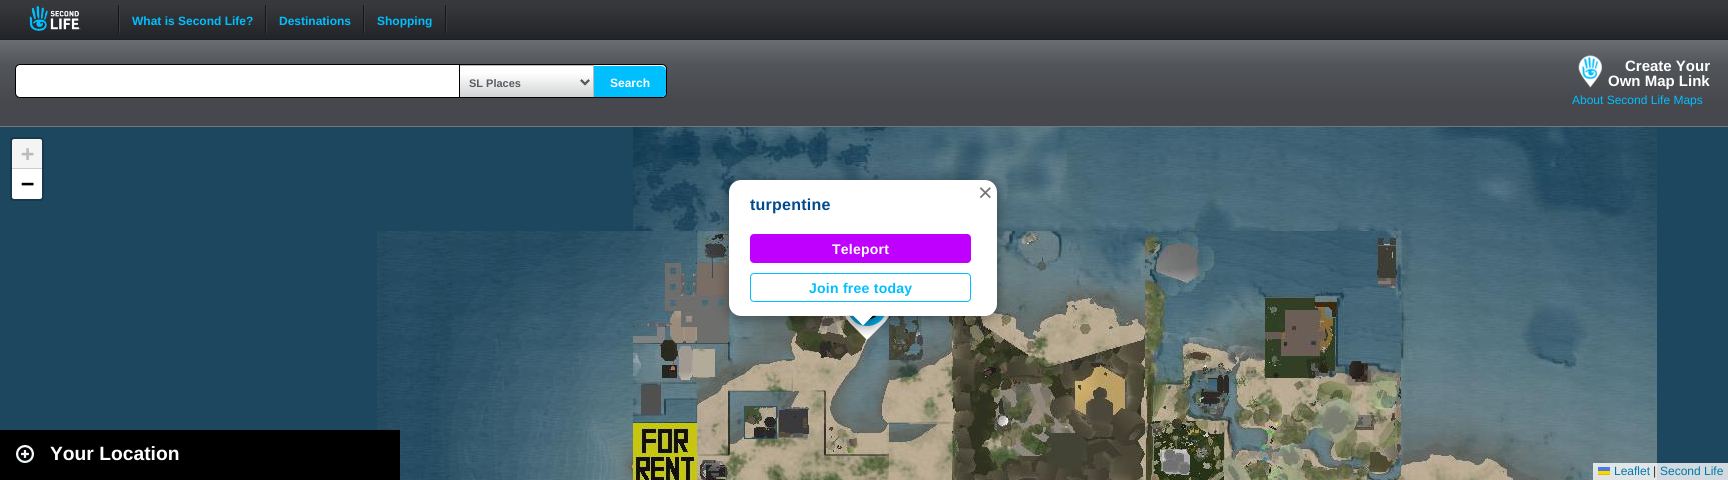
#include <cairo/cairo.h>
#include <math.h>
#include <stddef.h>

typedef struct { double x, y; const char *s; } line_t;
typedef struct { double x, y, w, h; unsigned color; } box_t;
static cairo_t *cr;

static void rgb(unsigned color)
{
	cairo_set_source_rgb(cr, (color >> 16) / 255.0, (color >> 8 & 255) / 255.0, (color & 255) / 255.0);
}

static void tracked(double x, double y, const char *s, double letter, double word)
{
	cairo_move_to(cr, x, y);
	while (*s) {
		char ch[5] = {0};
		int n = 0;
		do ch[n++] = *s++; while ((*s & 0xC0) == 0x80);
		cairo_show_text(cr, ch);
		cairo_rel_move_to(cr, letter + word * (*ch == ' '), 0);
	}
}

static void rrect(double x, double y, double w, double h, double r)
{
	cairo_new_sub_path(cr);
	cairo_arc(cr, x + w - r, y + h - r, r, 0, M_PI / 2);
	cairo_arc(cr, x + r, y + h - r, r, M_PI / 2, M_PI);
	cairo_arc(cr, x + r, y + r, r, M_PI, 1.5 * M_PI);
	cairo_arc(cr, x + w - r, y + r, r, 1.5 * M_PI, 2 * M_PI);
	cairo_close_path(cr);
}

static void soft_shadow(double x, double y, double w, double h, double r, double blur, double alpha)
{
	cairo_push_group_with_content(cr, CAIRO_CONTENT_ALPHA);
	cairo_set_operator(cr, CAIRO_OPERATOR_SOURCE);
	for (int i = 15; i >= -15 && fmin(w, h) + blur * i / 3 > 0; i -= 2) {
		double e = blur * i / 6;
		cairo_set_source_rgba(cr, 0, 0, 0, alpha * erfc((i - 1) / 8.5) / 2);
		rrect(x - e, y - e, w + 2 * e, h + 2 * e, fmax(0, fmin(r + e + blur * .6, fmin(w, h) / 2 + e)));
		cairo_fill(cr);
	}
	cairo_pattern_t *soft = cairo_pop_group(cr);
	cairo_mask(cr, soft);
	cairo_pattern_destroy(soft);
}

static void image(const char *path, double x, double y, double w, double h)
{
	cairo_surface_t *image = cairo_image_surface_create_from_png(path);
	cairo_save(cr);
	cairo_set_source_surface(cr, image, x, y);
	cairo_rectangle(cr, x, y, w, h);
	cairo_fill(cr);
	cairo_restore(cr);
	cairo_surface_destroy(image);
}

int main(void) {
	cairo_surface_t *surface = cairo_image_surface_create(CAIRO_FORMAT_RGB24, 1728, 480);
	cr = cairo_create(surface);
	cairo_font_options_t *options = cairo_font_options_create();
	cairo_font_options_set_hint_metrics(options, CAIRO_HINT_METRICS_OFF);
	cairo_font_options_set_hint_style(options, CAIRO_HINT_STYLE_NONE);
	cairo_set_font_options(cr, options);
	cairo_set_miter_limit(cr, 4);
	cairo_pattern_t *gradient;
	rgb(0x1d475f);
	cairo_paint(cr);
	image("img/1.png", 0, 0, 1728, 40);
	image("img/2.png", 29, 6, 52, 25);
	{
		static const box_t items[] = {
			{119, 5, 1, 28, 0x3a3e42},
			{118, 5, 1, 28, 0x161616},
			{266, 5, 1, 28, 0x3a3e42},
			{265, 5, 1, 28, 0x161616},
			{364, 5, 1, 28, 0x3a3e42},
			{363, 5, 1, 28, 0x161616},
			{446, 5, 1, 28, 0x3a3e42},
			{445, 5, 1, 28, 0x161616},
		};
		for (size_t i = 0; i < sizeof items / sizeof *items; i++) {
			rgb(items[i].color);
			cairo_rectangle(cr, items[i].x, items[i].y, items[i].w, items[i].h);
			cairo_fill(cr);
		}
	}
	gradient = cairo_pattern_create_linear(0, 126, 0, 40);
	cairo_pattern_add_color_stop_rgba(gradient, 0.29, 0.278, 0.282, 0.302, 1);
	cairo_pattern_add_color_stop_rgba(gradient, 0.71, 0.318, 0.333, 0.349, 1);
	cairo_pattern_add_color_stop_rgba(gradient, 1, 0.42, 0.431, 0.451, 1);
	cairo_set_source(cr, gradient);
	cairo_pattern_destroy(gradient);
	cairo_rectangle(cr, 0, 40, 1728, 86);
	cairo_fill(cr);
	rgb(0x72777e);
	cairo_rectangle(cr, 0, 126, 1728, 1);
	cairo_fill(cr);
	rgb(0xffffff);
	rrect(15.5, 64.5, 651, 33, 4.5);
	cairo_fill_preserve(cr);
	rgb(0x000000);
	cairo_set_line_width(cr, 1);
	cairo_stroke(cr);
	image("img/3.png", 460, 66, 133, 31);
	{
		static const box_t items[] = {
			{459, 65, 135, 1, 0xbbbbbb},
			{593, 65, 1, 32, 0xbbbbbb},
			{459, 65, 1, 32, 0x000000},
		};
		for (size_t i = 0; i < sizeof items / sizeof *items; i++) {
			rgb(items[i].color);
			cairo_rectangle(cr, items[i].x, items[i].y, items[i].w, items[i].h);
			cairo_fill(cr);
		}
	}
	cairo_new_path(cr);
	cairo_move_to(cr, 581, 80);
	cairo_line_to(cr, 585, 84);
	cairo_line_to(cr, 589, 80);
	rgb(0x595c62);
	cairo_set_line_width(cr, 2);
	cairo_stroke(cr);
	cairo_save(cr);
	rrect(16, 65, 650, 32, 4);
	cairo_clip(cr);
	rgb(0x00bfff);
	cairo_new_path(cr);
	cairo_move_to(cr, 594, 66);
	cairo_line_to(cr, 661, 66);
	cairo_curve_to(cr, 664, 66, 666, 68, 666, 71);
	cairo_line_to(cr, 666, 95);
	cairo_curve_to(cr, 666, 98, 664, 100, 661, 100);
	cairo_line_to(cr, 594, 100);
	cairo_close_path(cr);
	cairo_fill(cr);
	cairo_restore(cr);
	image("img/4.png", 1578, 55, 25, 33);
	rrect(11, 138, 32, 62, 3);
	rgb(0x17394c);
	cairo_stroke(cr);
	rgb(0xf4f4f4);
	cairo_new_path(cr);
	cairo_move_to(cr, 14, 139);
	cairo_line_to(cr, 40, 139);
	cairo_curve_to(cr, 41, 139, 42, 140, 42, 141);
	cairo_line_to(cr, 42, 169);
	cairo_line_to(cr, 12, 169);
	cairo_line_to(cr, 12, 141);
	cairo_curve_to(cr, 12, 140, 13, 139, 14, 139);
	cairo_close_path(cr);
	cairo_fill(cr);
	rgb(0xcccccc);
	cairo_rectangle(cr, 12, 168, 30, 1);
	cairo_fill(cr);
	rgb(0xffffff);
	cairo_new_path(cr);
	cairo_move_to(cr, 12, 169);
	cairo_line_to(cr, 42, 169);
	cairo_line_to(cr, 42, 197);
	cairo_curve_to(cr, 42, 198, 41, 199, 40, 199);
	cairo_line_to(cr, 14, 199);
	cairo_curve_to(cr, 13, 199, 12, 198, 12, 197);
	cairo_close_path(cr);
	cairo_fill(cr);
	image("img/13.png", 1401, 231, 256, 249);
	cairo_set_source_rgba(cr, 1, 1, 1, 0.8);
	cairo_rectangle(cr, 1593, 463, 135, 17);
	cairo_fill(cr);
	rgb(0x4c7be1);
	cairo_rectangle(cr, 1598, 467, 12, 4);
	cairo_fill(cr);
	rgb(0xffd500);
	cairo_rectangle(cr, 1598, 471, 12, 3);
	cairo_fill(cr);
	rgb(0xe0bc00);
	cairo_rectangle(cr, 1598, 474, 12, 1);
	cairo_fill(cr);
	image("img/5.png", 633, 127, 256, 104);
	image("img/6.png", 889, 127, 256, 104);
	image("img/7.png", 1145, 127, 256, 104);
	image("img/8.png", 1401, 127, 256, 104);
	image("img/9.png", 377, 231, 256, 249);
	image("img/10.png", 633, 231, 256, 249);
	image("img/11.png", 889, 231, 256, 249);
	image("img/12.png", 1145, 231, 256, 249);
	image("img/14.png", 845, 316, 44, 24);
	rgb(0x000000);
	soft_shadow(729, 183, 268, 136, 12, 7, 0.4);
	rgb(0xffffff);
	rrect(729, 180, 268, 136, 12);
	cairo_fill(cr);
	rgb(0xbf00ff);
	rrect(750, 234, 221, 29, 4);
	cairo_fill(cr);
	rrect(750.5, 273.5, 220, 28, 3.5);
	rgb(0x00bfff);
	cairo_set_line_width(cr, 1);
	cairo_stroke(cr);
	cairo_save(cr);
	cairo_rectangle(cr, 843, 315, 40, 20);
	cairo_clip(cr);
	rgb(0x000000);
	soft_shadow(855, 308, 17, 17, 0, 7, 0.4);
	cairo_restore(cr);
	cairo_save(cr);
	cairo_rectangle(cr, 843, 315, 40, 20);
	cairo_clip(cr);
	rgb(0xffffff);
	cairo_new_path(cr);
	cairo_move_to(cr, 863, 301.5);
	cairo_line_to(cr, 875, 313.5);
	cairo_line_to(cr, 863, 325.5);
	cairo_line_to(cr, 851, 313.5);
	cairo_close_path(cr);
	cairo_fill(cr);
	cairo_restore(cr);
	rgb(0x000000);
	cairo_rectangle(cr, 0, 430, 400, 50);
	cairo_fill(cr);
	image("img/15.png", 16, 445, 18, 18);
	cairo_select_font_face(cr, "Liberation Sans", CAIRO_FONT_SLANT_NORMAL, CAIRO_FONT_WEIGHT_BOLD);
	cairo_set_font_size(cr, 12);
	rgb(0x00bfff);
	{
		static const line_t items[] = {
			{132, 25, "What is Second Life?"},
			{279, 25, "Destinations"},
			{377, 25, "Shopping"},
		};
		for (size_t i = 0; i < sizeof items / sizeof *items; i++) {
			cairo_move_to(cr, items[i].x, items[i].y);
			cairo_show_text(cr, items[i].s);
		}
	}
	cairo_set_font_size(cr, 11);
	rgb(0x595c62);
	cairo_move_to(cr, 469, 87);
	cairo_show_text(cr, "SL Places");
	cairo_set_font_size(cr, 12);
	rgb(0xffffff);
	cairo_move_to(cr, 610, 87);
	cairo_show_text(cr, "Search");
	cairo_set_font_size(cr, 15);
	cairo_move_to(cr, 1625, 71);
	cairo_show_text(cr, "Create Your");
	cairo_move_to(cr, 1608, 86);
	cairo_show_text(cr, "Own Map Link");
	cairo_select_font_face(cr, "Liberation Sans", CAIRO_FONT_SLANT_NORMAL, CAIRO_FONT_WEIGHT_NORMAL);
	cairo_set_font_size(cr, 12);
	rgb(0x00bfff);
	cairo_move_to(cr, 1572, 104);
	cairo_show_text(cr, "About Second Life Maps");
	cairo_select_font_face(cr, "DejaVu Sans Mono", CAIRO_FONT_SLANT_NORMAL, CAIRO_FONT_WEIGHT_BOLD);
	cairo_set_font_size(cr, 22);
	rgb(0xbbbbbb);
	cairo_move_to(cr, 21, 161);
	cairo_show_text(cr, "+");
	rgb(0x000000);
	cairo_move_to(cr, 21, 191);
	cairo_show_text(cr, "−");
	cairo_select_font_face(cr, "Liberation Sans", CAIRO_FONT_SLANT_NORMAL, CAIRO_FONT_WEIGHT_NORMAL);
	cairo_set_font_size(cr, 12);
	rgb(0x0078a8);
	cairo_move_to(cr, 1614, 475);
	cairo_show_text(cr, "Leaflet");
	rgb(0x333333);
	cairo_move_to(cr, 1653, 475);
	cairo_show_text(cr, "|");
	rgb(0x0078a8);
	cairo_move_to(cr, 1660, 475);
	cairo_show_text(cr, "Second Life");
	cairo_set_font_size(cr, 25);
	rgb(0x757575);
	cairo_move_to(cr, 978, 201);
	cairo_show_text(cr, "×");
	cairo_select_font_face(cr, "Liberation Sans", CAIRO_FONT_SLANT_NORMAL, CAIRO_FONT_WEIGHT_BOLD);
	cairo_set_font_size(cr, 16);
	rgb(0x014a8e);
	tracked(750, 210, "turpentine", 0.25, 0);
	cairo_set_font_size(cr, 14);
	rgb(0xffffff);
	tracked(832, 254, "Teleport", 0.25, 0);
	rgb(0x00bfff);
	tracked(809, 293, "Join free today", 0.25, 0);
	cairo_set_font_size(cr, 19.25);
	rgb(0xffffff);
	cairo_move_to(cr, 50, 460);
	cairo_show_text(cr, "Your Location");
	cairo_surface_write_to_png(surface, "page.png");
	cairo_font_options_destroy(options);
	cairo_destroy(cr);
	cairo_surface_destroy(surface);
	return 0;
}
